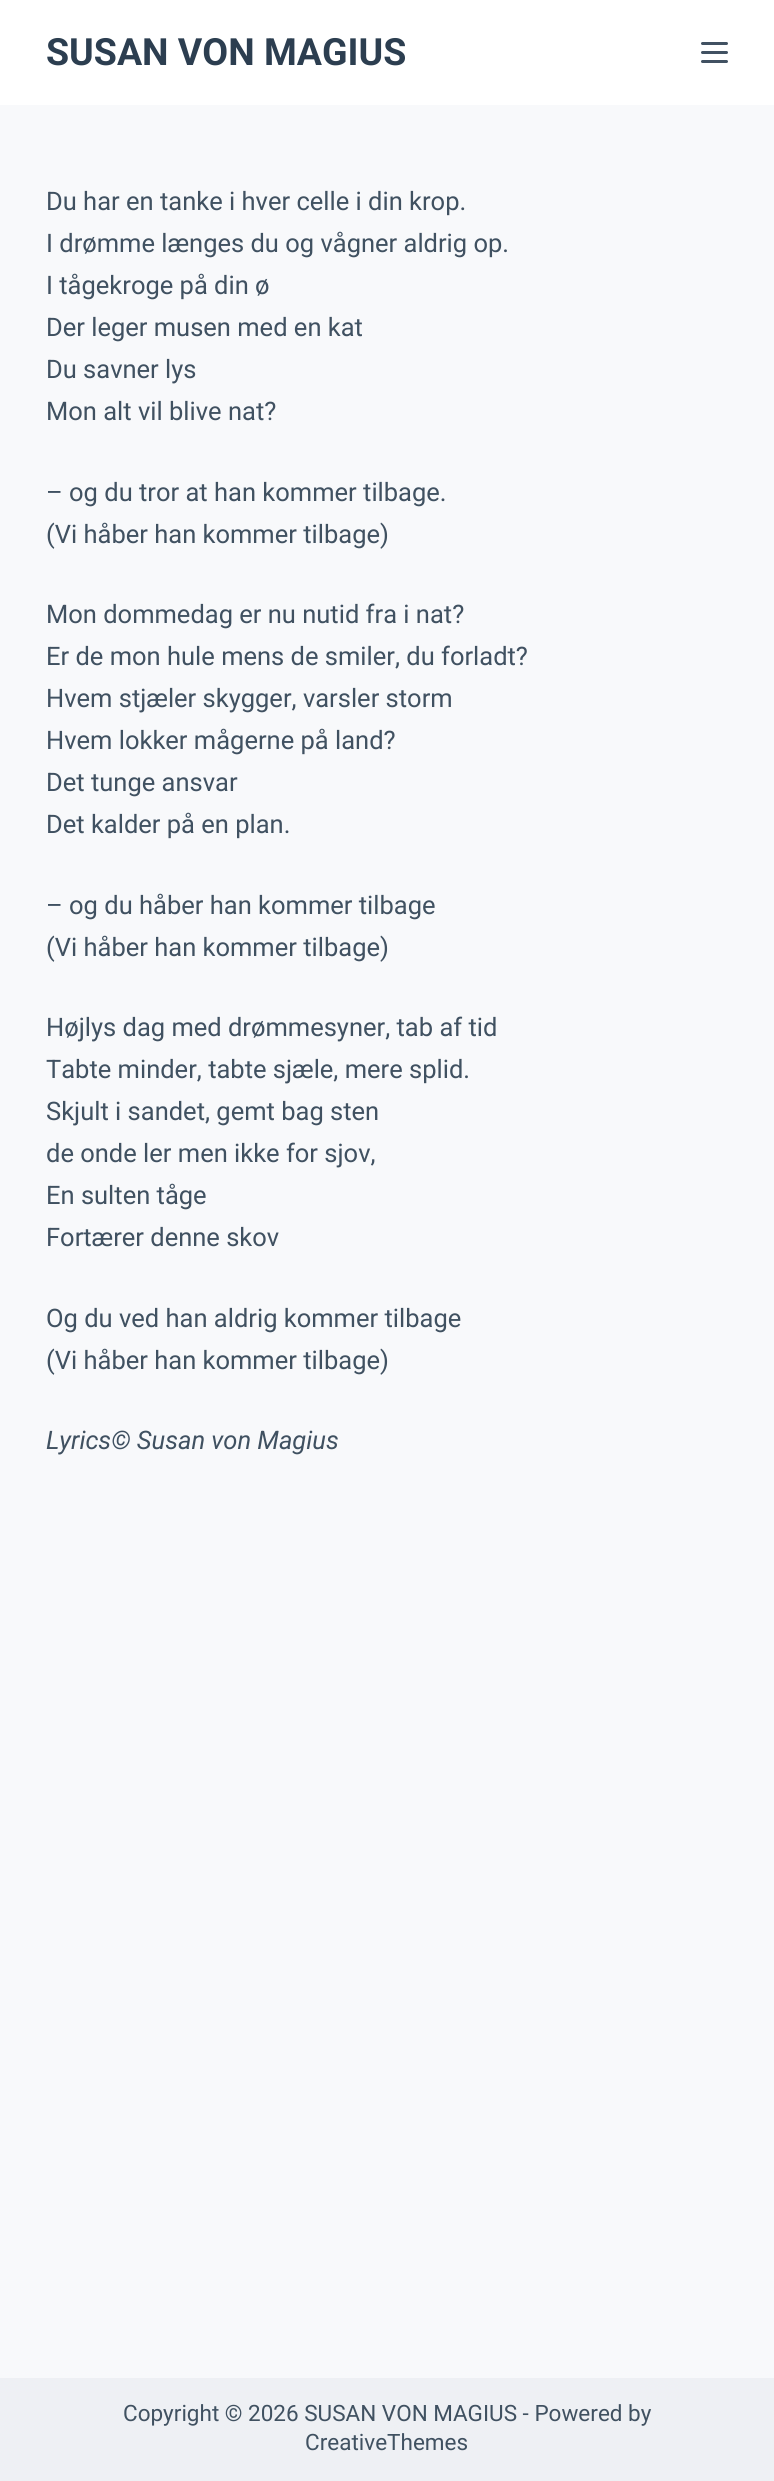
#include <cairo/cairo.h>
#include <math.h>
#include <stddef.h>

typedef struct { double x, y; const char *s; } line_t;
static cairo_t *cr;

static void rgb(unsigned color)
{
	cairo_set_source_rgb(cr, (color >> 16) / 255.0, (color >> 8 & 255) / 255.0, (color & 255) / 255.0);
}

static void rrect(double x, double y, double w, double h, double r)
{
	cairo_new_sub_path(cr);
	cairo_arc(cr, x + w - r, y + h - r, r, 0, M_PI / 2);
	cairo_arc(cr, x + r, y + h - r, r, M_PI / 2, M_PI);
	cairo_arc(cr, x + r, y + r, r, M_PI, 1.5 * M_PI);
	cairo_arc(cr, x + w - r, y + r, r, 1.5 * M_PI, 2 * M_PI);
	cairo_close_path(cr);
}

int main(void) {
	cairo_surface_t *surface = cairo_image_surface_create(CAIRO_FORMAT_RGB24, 774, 2481);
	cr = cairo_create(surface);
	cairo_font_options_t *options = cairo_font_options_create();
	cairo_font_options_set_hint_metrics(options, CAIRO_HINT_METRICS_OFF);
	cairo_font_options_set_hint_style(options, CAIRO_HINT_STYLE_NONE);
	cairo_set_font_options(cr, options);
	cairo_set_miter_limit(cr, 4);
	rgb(0xf8f9fb);
	cairo_paint(cr);
	rgb(0xffffff);
	cairo_rectangle(cr, 0, 0, 774, 105);
	cairo_fill(cr);
	rgb(0x415162);
	rrect(701, 51, 27, 3, 1.5);
	cairo_fill(cr);
	rrect(701, 42, 27, 3, 1.5);
	cairo_fill(cr);
	rrect(701, 60, 27, 3, 1.5);
	cairo_fill(cr);
	rgb(0xeef0f4);
	cairo_rectangle(cr, 0, 2378, 774, 103);
	cairo_fill(cr);
	cairo_select_font_face(cr, "Roboto", CAIRO_FONT_SLANT_NORMAL, CAIRO_FONT_WEIGHT_BOLD);
	cairo_set_font_size(cr, 37.5);
	rgb(0x2c3e50);
	cairo_move_to(cr, 46, 65);
	cairo_show_text(cr, "SUSAN VON MAGIUS");
	cairo_select_font_face(cr, "Roboto", CAIRO_FONT_SLANT_NORMAL, CAIRO_FONT_WEIGHT_NORMAL);
	cairo_set_font_size(cr, 25.5);
	rgb(0x405161);
	{
		static const line_t items[] = {
			{46, 210, "Du har en tanke i hver celle i din krop."},
			{46, 252, "I drømme længes du og vågner aldrig op."},
			{46, 294, "I tågekroge på din ø"},
			{46, 336, "Der leger musen med en kat"},
			{46, 378, "Du savner lys"},
			{46, 420, "Mon alt vil blive nat?"},
			{46, 501, "– og du tror at han kommer tilbage."},
			{46, 543, "(Vi håber han kommer tilbage)"},
			{46, 623, "Mon dommedag er nu nutid fra i nat?"},
			{46, 665, "Er de mon hule mens de smiler, du forladt?"},
			{46, 707, "Hvem stjæler skygger, varsler storm"},
			{46, 749, "Hvem lokker mågerne på land?"},
			{46, 791, "Det tunge ansvar"},
			{46, 833, "Det kalder på en plan."},
			{46, 914, "– og du håber han kommer tilbage"},
			{46, 956, "(Vi håber han kommer tilbage)"},
			{46, 1036, "Højlys dag med drømmesyner, tab af tid"},
			{46, 1078, "Tabte minder, tabte sjæle, mere splid."},
			{46, 1120, "Skjult i sandet, gemt bag sten"},
			{46, 1162, "de onde ler men ikke for sjov,"},
			{46, 1204, "En sulten tåge"},
			{46, 1246, "Fortærer denne skov"},
			{46, 1327, "Og du ved han aldrig kommer tilbage"},
			{46, 1369, "(Vi håber han kommer tilbage)"},
		};
		for (size_t i = 0; i < sizeof items / sizeof *items; i++) {
			cairo_move_to(cr, items[i].x, items[i].y);
			cairo_show_text(cr, items[i].s);
		}
	}
	cairo_select_font_face(cr, "Roboto", CAIRO_FONT_SLANT_ITALIC, CAIRO_FONT_WEIGHT_NORMAL);
	cairo_move_to(cr, 46, 1449);
	cairo_show_text(cr, "Lyrics© Susan von Magius");
	cairo_select_font_face(cr, "Roboto", CAIRO_FONT_SLANT_NORMAL, CAIRO_FONT_WEIGHT_NORMAL);
	cairo_set_font_size(cr, 22.5);
	cairo_move_to(cr, 123, 2421);
	cairo_show_text(cr, "Copyright © 2026 SUSAN VON MAGIUS - Powered by");
	cairo_move_to(cr, 305, 2450);
	cairo_show_text(cr, "CreativeThemes");
	cairo_surface_write_to_png(surface, "page.png");
	cairo_font_options_destroy(options);
	cairo_destroy(cr);
	cairo_surface_destroy(surface);
	return 0;
}
